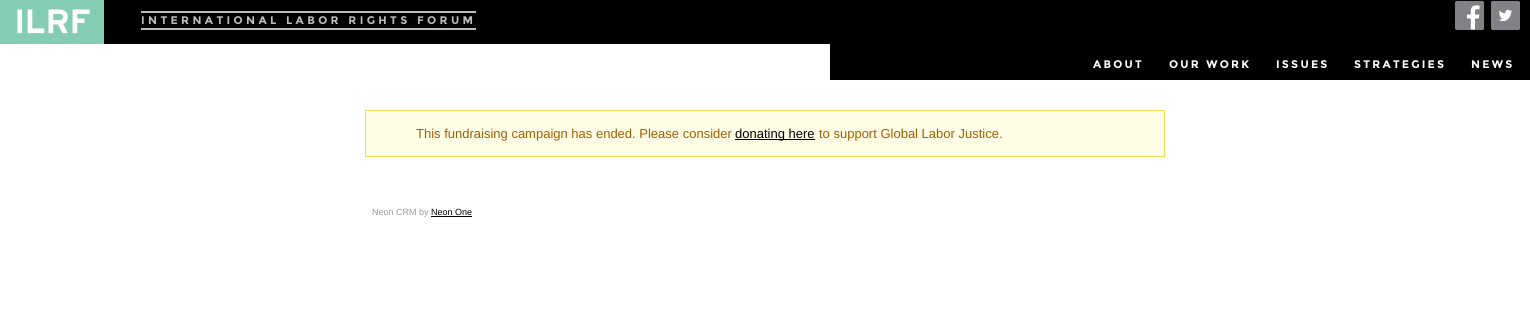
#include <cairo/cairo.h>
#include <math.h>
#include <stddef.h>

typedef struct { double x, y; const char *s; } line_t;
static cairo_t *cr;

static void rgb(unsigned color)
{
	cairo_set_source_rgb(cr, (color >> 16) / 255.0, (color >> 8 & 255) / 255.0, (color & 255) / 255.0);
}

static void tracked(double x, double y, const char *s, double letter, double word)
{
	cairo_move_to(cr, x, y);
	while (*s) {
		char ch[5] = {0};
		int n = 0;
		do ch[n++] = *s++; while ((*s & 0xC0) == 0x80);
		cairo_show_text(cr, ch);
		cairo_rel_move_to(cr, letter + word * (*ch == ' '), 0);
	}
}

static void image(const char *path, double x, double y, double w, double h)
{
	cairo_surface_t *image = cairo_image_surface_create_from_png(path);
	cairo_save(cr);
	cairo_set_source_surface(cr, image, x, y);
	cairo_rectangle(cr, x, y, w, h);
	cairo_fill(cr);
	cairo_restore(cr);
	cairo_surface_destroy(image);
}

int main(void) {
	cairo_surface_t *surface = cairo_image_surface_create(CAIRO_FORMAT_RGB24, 1530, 324);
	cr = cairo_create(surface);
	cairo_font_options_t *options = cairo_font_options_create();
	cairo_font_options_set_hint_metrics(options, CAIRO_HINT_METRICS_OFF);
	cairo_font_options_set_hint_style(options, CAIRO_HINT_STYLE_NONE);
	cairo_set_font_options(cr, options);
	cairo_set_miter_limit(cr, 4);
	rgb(0xffffff);
	cairo_paint(cr);
	rgb(0x000000);
	cairo_rectangle(cr, 104, 0, 1426, 44);
	cairo_fill(cr);
	image("img/1.png", 0, 0, 104, 44);
	rgb(0xbcbec0);
	cairo_rectangle(cr, 141, 11, 335, 2);
	cairo_fill(cr);
	cairo_rectangle(cr, 141, 28, 335, 2);
	cairo_fill(cr);
	image("img/2.png", 1455, 0, 30, 30);
	image("img/3.png", 1491, 0, 29, 30);
	rgb(0x000000);
	cairo_rectangle(cr, 830, 44, 700, 36);
	cairo_fill(cr);
	rgb(0xfffce5);
	cairo_rectangle(cr, 365.5, 110.5, 799, 46);
	cairo_fill_preserve(cr);
	rgb(0xeedd55);
	cairo_set_line_width(cr, 1);
	cairo_stroke(cr);
	rgb(0x000000);
	cairo_rectangle(cr, 735, 139, 80, 1);
	cairo_fill(cr);
	cairo_rectangle(cr, 431, 216, 41, 1);
	cairo_fill(cr);
	cairo_select_font_face(cr, "Montserrat", CAIRO_FONT_SLANT_NORMAL, CAIRO_FONT_WEIGHT_BOLD);
	cairo_set_font_size(cr, 11);
	rgb(0xbcbec0);
	tracked(141, 24, "INTERNATIONAL LABOR RIGHTS FORUM", 3.4, 0);
	rgb(0xffffff);
	{
		static const line_t items[] = {
			{1093, 68, "ABOUT"},
			{1169, 68, "OUR WORK"},
			{1276, 68, "ISSUES"},
			{1354, 68, "STRATEGIES"},
			{1471, 68, "NEWS"},
		};
		for (size_t i = 0; i < sizeof items / sizeof *items; i++) {
			tracked(items[i].x, items[i].y, items[i].s, 2.25, 0);
		}
	}
	cairo_select_font_face(cr, "Liberation Sans", CAIRO_FONT_SLANT_NORMAL, CAIRO_FONT_WEIGHT_NORMAL);
	cairo_set_font_size(cr, 13);
	rgb(0x9f6000);
	cairo_move_to(cr, 416, 138);
	cairo_show_text(cr, "This fundraising campaign has ended. Please consider");
	rgb(0x000000);
	cairo_move_to(cr, 735, 138);
	cairo_show_text(cr, "donating here");
	rgb(0x9f6000);
	cairo_move_to(cr, 819, 138);
	cairo_show_text(cr, "to support Global Labor Justice.");
	cairo_set_font_size(cr, 9);
	rgb(0x999999);
	cairo_move_to(cr, 372, 215);
	cairo_show_text(cr, "Neon CRM by");
	rgb(0x000000);
	cairo_move_to(cr, 431, 215);
	cairo_show_text(cr, "Neon One");
	cairo_surface_write_to_png(surface, "page.png");
	cairo_font_options_destroy(options);
	cairo_destroy(cr);
	cairo_surface_destroy(surface);
	return 0;
}
